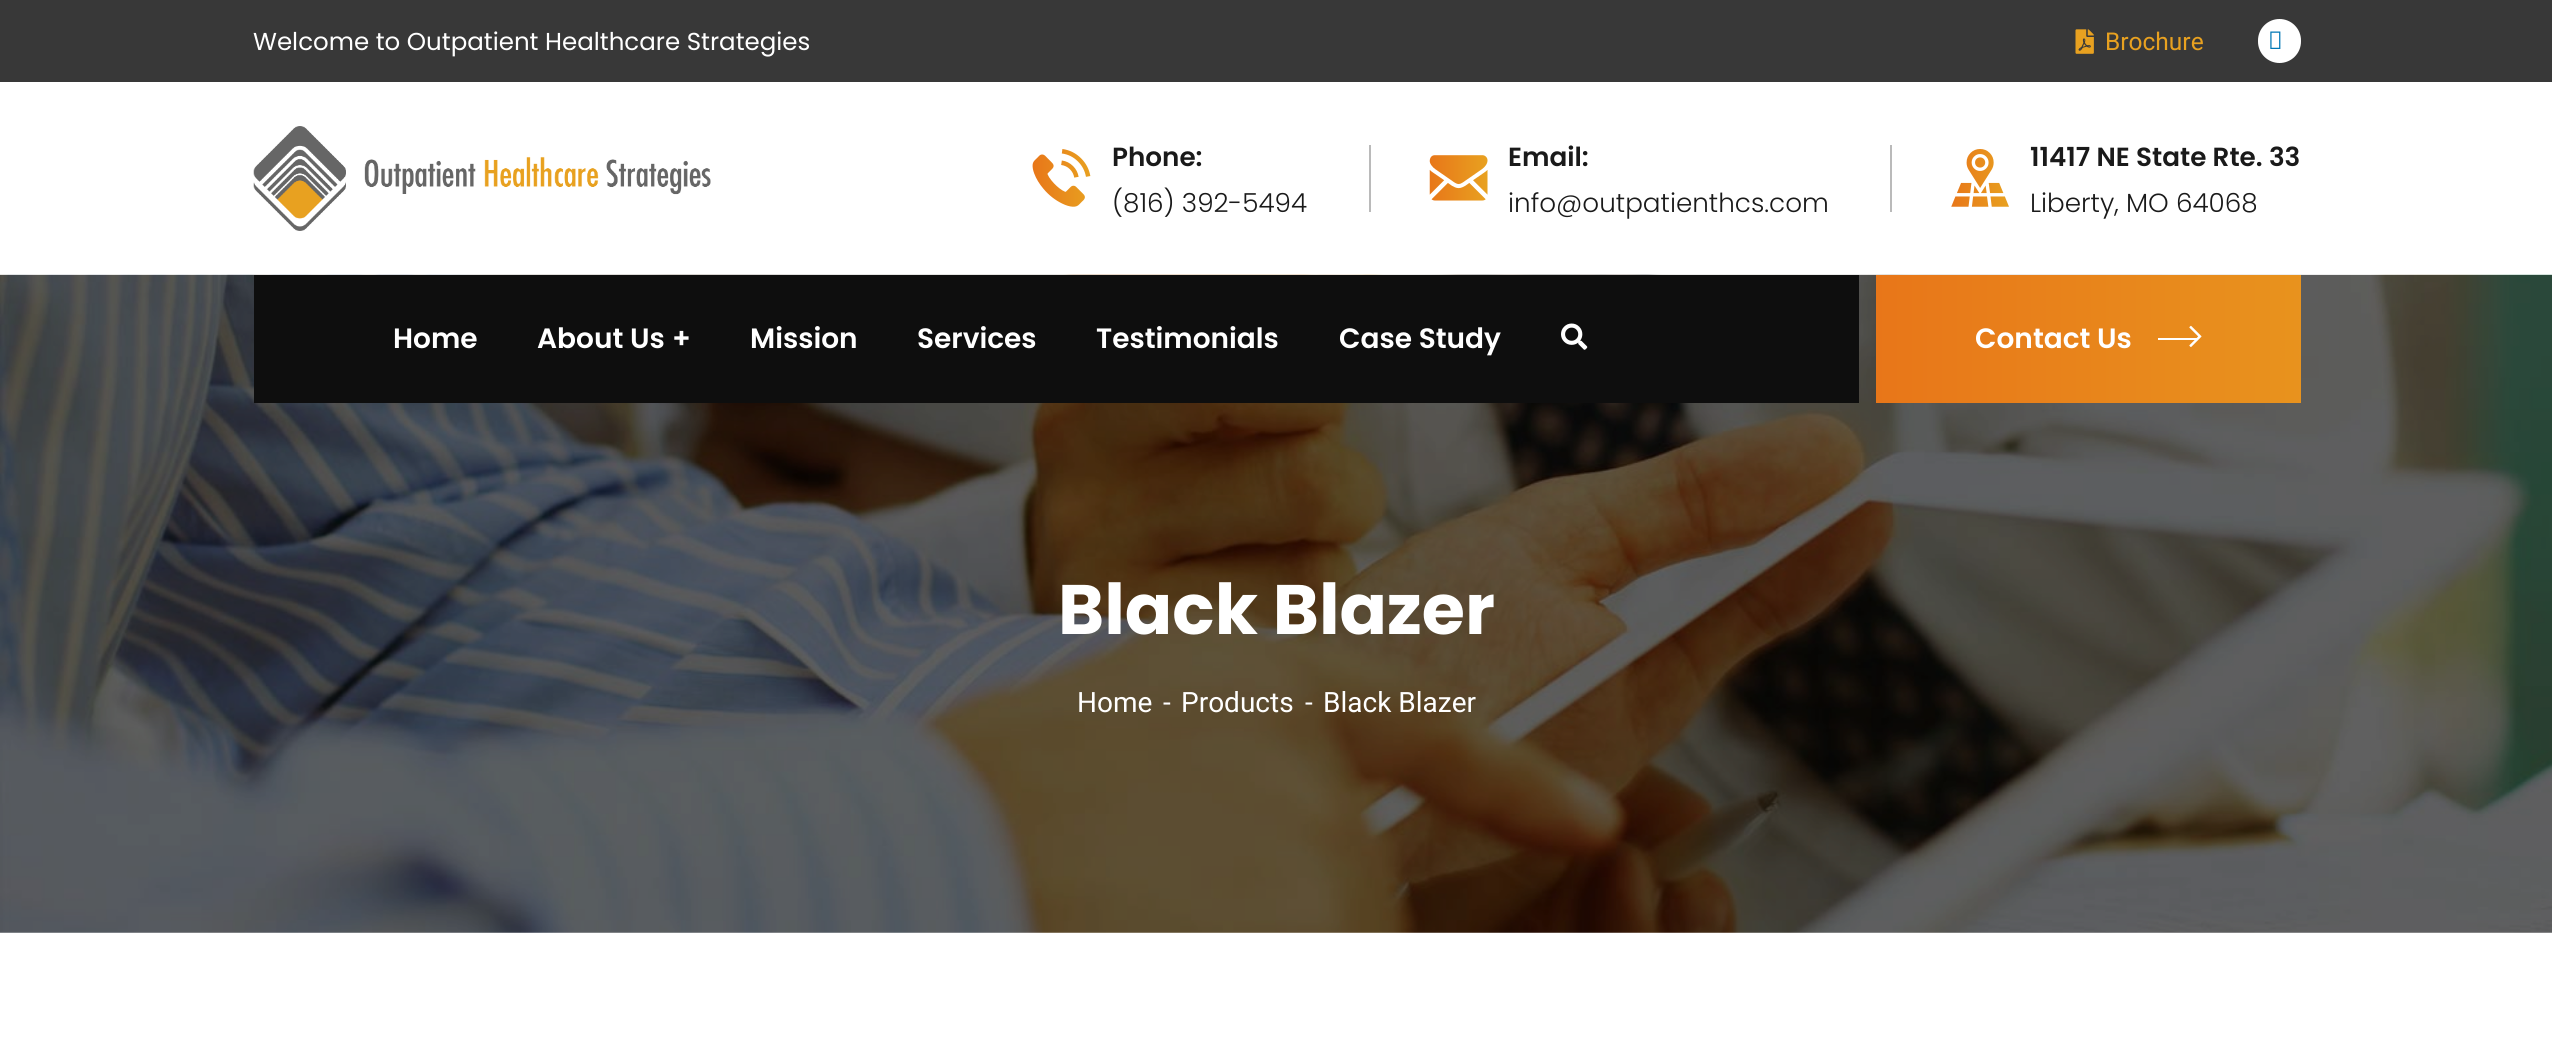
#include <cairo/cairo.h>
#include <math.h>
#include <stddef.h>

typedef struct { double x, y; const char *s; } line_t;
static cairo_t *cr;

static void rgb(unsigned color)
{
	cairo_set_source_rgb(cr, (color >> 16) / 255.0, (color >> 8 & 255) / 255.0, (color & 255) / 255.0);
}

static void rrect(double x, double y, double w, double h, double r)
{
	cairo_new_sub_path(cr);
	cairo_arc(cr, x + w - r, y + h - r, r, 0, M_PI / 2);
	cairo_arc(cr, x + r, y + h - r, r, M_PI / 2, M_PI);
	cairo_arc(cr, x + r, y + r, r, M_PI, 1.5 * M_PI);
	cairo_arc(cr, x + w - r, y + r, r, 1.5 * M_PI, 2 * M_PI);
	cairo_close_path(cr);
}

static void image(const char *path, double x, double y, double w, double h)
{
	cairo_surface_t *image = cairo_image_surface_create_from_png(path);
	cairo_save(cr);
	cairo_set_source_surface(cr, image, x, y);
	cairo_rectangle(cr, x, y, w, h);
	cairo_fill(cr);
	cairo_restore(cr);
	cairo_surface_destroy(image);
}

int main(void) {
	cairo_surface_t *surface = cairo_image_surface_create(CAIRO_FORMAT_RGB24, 2552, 1051);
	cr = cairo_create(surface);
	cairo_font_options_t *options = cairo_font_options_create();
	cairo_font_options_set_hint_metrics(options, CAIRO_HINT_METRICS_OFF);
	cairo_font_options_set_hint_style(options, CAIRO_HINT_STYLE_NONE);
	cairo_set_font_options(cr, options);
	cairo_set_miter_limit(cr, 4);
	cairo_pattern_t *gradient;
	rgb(0xffffff);
	cairo_paint(cr);
	rgb(0x383838);
	cairo_rectangle(cr, 0, 0, 2552, 82);
	cairo_fill(cr);
	image("img/1.png", 2075, 29, 19, 25);
	rgb(0xffffff);
	rrect(2258, 19, 43, 44, 21.5);
	cairo_fill(cr);
	image("img/2.png", 2270, 31, 11, 18);
	image("img/3.png", 253, 126, 458, 105);
	image("img/4.png", 1032, 149, 59, 58);
	rgb(0xbababa);
	cairo_rectangle(cr, 1369, 145, 2, 67);
	cairo_fill(cr);
	image("img/5.png", 1429, 155, 59, 46);
	cairo_rectangle(cr, 1890, 145, 2, 67);
	cairo_fill(cr);
	image("img/6.png", 1951, 149, 58, 58);
	image("img/9.png", 0, 274, 2552, 659);
	rgb(0x0e0e0e);
	cairo_rectangle(cr, 254, 275, 1605, 128);
	cairo_fill(cr);
	image("img/7.png", 1561, 323, 27, 27);
	gradient = cairo_pattern_create_linear(1876, 339, 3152, 339);
	cairo_pattern_add_color_stop_rgba(gradient, 0, 0.91, 0.463, 0.098, 1);
	cairo_pattern_add_color_stop_rgba(gradient, 0.5, 0.91, 0.631, 0.125, 1);
	cairo_pattern_add_color_stop_rgba(gradient, 1, 0.91, 0.463, 0.098, 1);
	cairo_set_source(cr, gradient);
	cairo_pattern_destroy(gradient);
	cairo_rectangle(cr, 1876, 275, 425, 128);
	cairo_fill(cr);
	image("img/8.png", 2189, 325, 13, 22);
	rgb(0xffffff);
	cairo_rectangle(cr, 2158, 338, 40, 2);
	cairo_fill(cr);
	cairo_select_font_face(cr, "Poppins", CAIRO_FONT_SLANT_NORMAL, CAIRO_FONT_WEIGHT_NORMAL);
	cairo_set_font_size(cr, 24.5);
	cairo_move_to(cr, 253, 50);
	cairo_show_text(cr, "Welcome to Outpatient Healthcare Strategies");
	cairo_select_font_face(cr, "Roboto", CAIRO_FONT_SLANT_NORMAL, CAIRO_FONT_WEIGHT_NORMAL);
	rgb(0xe8a120);
	cairo_move_to(cr, 2105, 50);
	cairo_show_text(cr, "Brochure");
	cairo_select_font_face(cr, "Poppins SemiBold", CAIRO_FONT_SLANT_NORMAL, CAIRO_FONT_WEIGHT_NORMAL);
	cairo_set_font_size(cr, 26.25);
	rgb(0x1a1a1a);
	cairo_move_to(cr, 1112, 166);
	cairo_show_text(cr, "Phone:");
	cairo_select_font_face(cr, "Poppins Light", CAIRO_FONT_SLANT_NORMAL, CAIRO_FONT_WEIGHT_NORMAL);
	cairo_move_to(cr, 1112, 212);
	cairo_show_text(cr, "(816) 392-5494");
	cairo_select_font_face(cr, "Poppins SemiBold", CAIRO_FONT_SLANT_NORMAL, CAIRO_FONT_WEIGHT_NORMAL);
	cairo_move_to(cr, 1508, 166);
	cairo_show_text(cr, "Email:");
	cairo_select_font_face(cr, "Poppins Light", CAIRO_FONT_SLANT_NORMAL, CAIRO_FONT_WEIGHT_NORMAL);
	cairo_move_to(cr, 1508, 212);
	cairo_show_text(cr, "info@outpatienthcs.com");
	cairo_select_font_face(cr, "Poppins SemiBold", CAIRO_FONT_SLANT_NORMAL, CAIRO_FONT_WEIGHT_NORMAL);
	cairo_move_to(cr, 2030, 166);
	cairo_show_text(cr, "11417 NE State Rte. 33");
	cairo_select_font_face(cr, "Poppins Light", CAIRO_FONT_SLANT_NORMAL, CAIRO_FONT_WEIGHT_NORMAL);
	cairo_move_to(cr, 2030, 212);
	cairo_show_text(cr, "Liberty, MO 64068");
	cairo_select_font_face(cr, "Poppins SemiBold", CAIRO_FONT_SLANT_NORMAL, CAIRO_FONT_WEIGHT_NORMAL);
	cairo_set_font_size(cr, 28);
	rgb(0xffffff);
	{
		static const line_t items[] = {
			{393, 348, "Home"},
			{537, 348, "About Us"},
			{672, 348, "+"},
			{750, 348, "Mission"},
			{917, 348, "Services"},
			{1096, 348, "Testimonials"},
			{1339, 348, "Case Study"},
			{1975, 348, "Contact Us"},
		};
		for (size_t i = 0; i < sizeof items / sizeof *items; i++) {
			cairo_move_to(cr, items[i].x, items[i].y);
			cairo_show_text(cr, items[i].s);
		}
	}
	cairo_select_font_face(cr, "Poppins", CAIRO_FONT_SLANT_NORMAL, CAIRO_FONT_WEIGHT_BOLD);
	cairo_set_font_size(cr, 70);
	cairo_move_to(cr, 1058, 634);
	cairo_show_text(cr, "Black Blazer");
	cairo_select_font_face(cr, "Roboto", CAIRO_FONT_SLANT_NORMAL, CAIRO_FONT_WEIGHT_NORMAL);
	cairo_set_font_size(cr, 28);
	{
		static const line_t items[] = {
			{1077, 712, "Home"},
			{1163, 712, "-"},
			{1181, 712, "Products"},
			{1305, 712, "-"},
			{1323, 712, "Black Blazer"},
		};
		for (size_t i = 0; i < sizeof items / sizeof *items; i++) {
			cairo_move_to(cr, items[i].x, items[i].y);
			cairo_show_text(cr, items[i].s);
		}
	}
	cairo_surface_write_to_png(surface, "page.png");
	cairo_font_options_destroy(options);
	cairo_destroy(cr);
	cairo_surface_destroy(surface);
	return 0;
}
